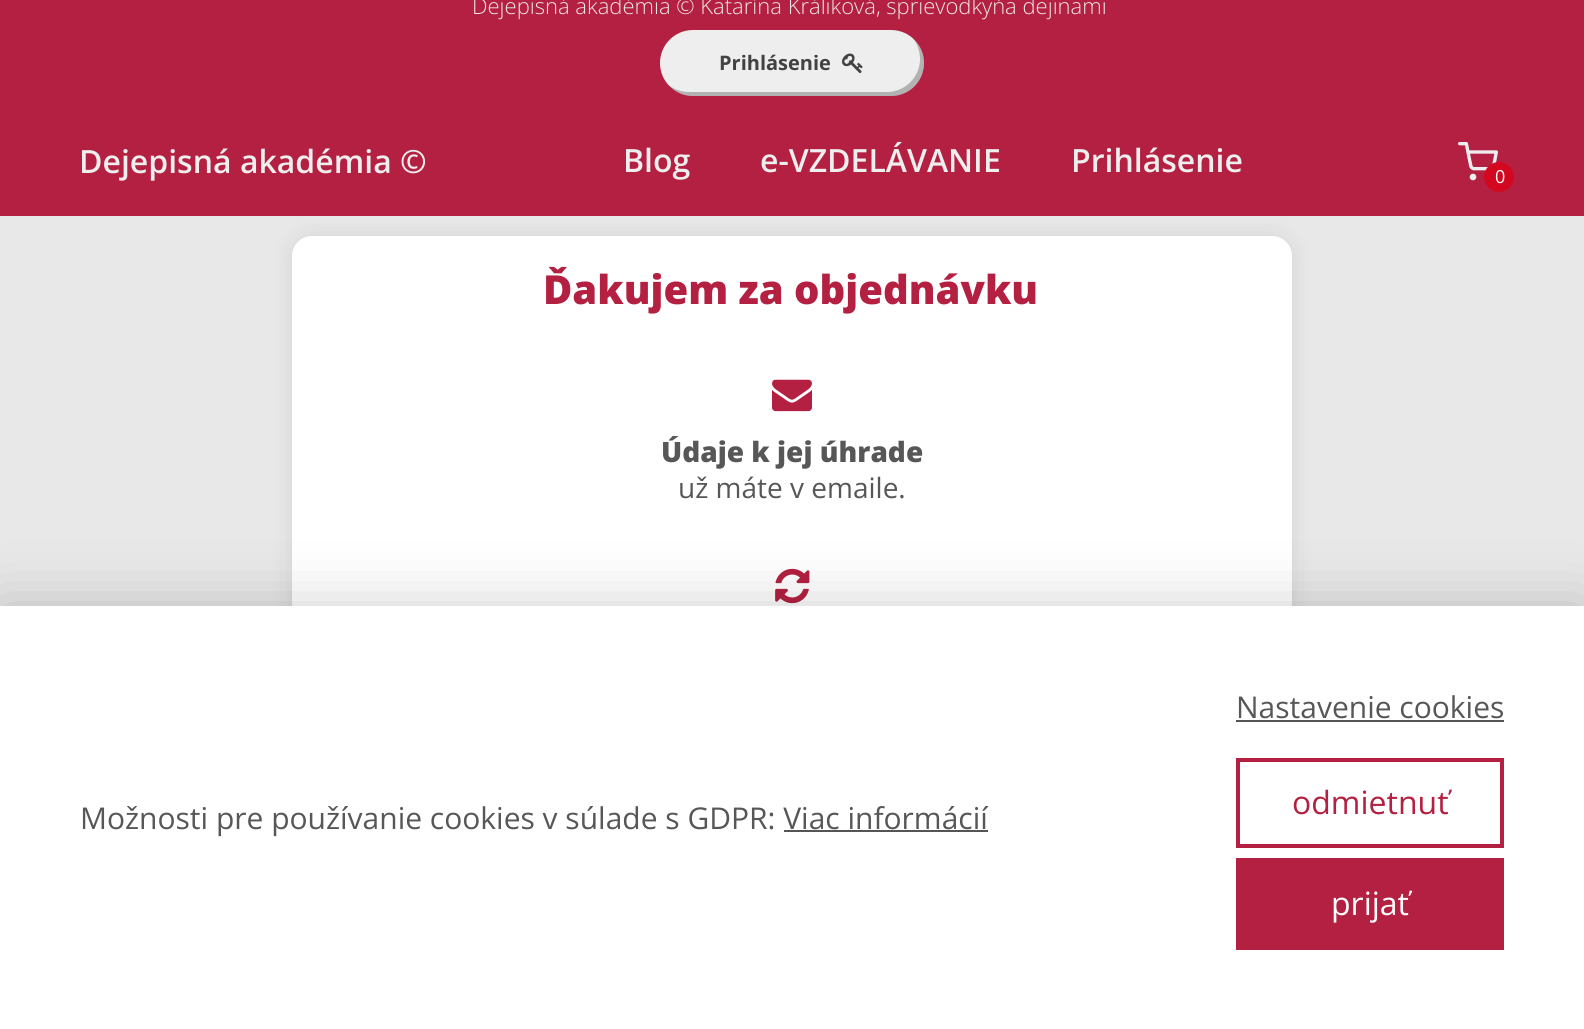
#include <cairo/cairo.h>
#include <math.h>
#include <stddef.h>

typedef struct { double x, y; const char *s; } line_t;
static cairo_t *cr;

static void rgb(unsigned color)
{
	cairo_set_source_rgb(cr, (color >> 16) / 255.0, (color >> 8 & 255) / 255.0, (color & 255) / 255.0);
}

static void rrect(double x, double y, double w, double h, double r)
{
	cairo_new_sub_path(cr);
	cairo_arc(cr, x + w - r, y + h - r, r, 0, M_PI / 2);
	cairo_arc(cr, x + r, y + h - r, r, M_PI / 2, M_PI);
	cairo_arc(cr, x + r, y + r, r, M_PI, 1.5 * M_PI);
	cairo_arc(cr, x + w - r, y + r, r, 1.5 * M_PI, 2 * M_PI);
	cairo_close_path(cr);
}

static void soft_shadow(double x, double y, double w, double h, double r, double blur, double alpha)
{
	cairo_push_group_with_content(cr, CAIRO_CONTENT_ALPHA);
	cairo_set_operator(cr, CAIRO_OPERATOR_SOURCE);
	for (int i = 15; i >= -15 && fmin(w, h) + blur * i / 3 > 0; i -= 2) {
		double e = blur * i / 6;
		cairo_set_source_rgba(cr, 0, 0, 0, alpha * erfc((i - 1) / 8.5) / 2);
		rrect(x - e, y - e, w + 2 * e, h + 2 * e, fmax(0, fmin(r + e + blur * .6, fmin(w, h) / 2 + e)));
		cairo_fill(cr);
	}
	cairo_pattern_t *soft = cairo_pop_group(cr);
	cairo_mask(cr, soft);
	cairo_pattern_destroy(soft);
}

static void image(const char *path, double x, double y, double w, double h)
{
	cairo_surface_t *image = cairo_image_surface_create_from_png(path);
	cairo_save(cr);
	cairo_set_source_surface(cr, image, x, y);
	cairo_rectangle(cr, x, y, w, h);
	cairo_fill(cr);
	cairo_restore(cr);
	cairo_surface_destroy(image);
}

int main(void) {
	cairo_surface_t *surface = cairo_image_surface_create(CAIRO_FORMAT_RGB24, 1584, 1029);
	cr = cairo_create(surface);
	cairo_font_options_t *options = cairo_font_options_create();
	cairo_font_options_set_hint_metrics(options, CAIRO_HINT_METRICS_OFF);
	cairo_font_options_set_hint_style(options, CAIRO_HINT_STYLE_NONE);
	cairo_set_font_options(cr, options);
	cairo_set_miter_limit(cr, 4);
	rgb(0xe8e8e8);
	cairo_paint(cr);
	rgb(0x000000);
	soft_shadow(292, 236, 1000, 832, 20, 10, 0.1);
	rgb(0xb42041);
	cairo_rectangle(cr, 0, 0, 1584, 216);
	cairo_fill(cr);
	rgb(0xeeeeee);
	rrect(660, 30, 264, 66, 33);
	cairo_fill(cr);
	cairo_set_source_rgba(cr, 0, 0, 0, 0.25);
	cairo_new_path(cr);
	cairo_move_to(cr, 667, 84);
	cairo_curve_to(cr, 673, 91, 683, 96, 693, 96);
	cairo_line_to(cr, 891, 96);
	cairo_curve_to(cr, 909, 96, 924, 81, 924, 63);
	cairo_curve_to(cr, 924, 53, 919, 43, 912, 37);
	cairo_curve_to(cr, 917, 43, 920, 51, 920, 59);
	cairo_curve_to(cr, 920, 77, 905, 92, 887, 92);
	cairo_line_to(cr, 689, 92);
	cairo_curve_to(cr, 681, 92, 673, 89, 667, 84);
	cairo_close_path(cr);
	cairo_fill(cr);
	image("img/1.png", 842, 53, 21, 21);
	image("img/2.png", 1458, 142, 40, 39);
	rgb(0xd30820);
	cairo_arc(cr, 1499, 177, 15, 0, 2 * M_PI);
	cairo_fill(cr);
	rgb(0xffffff);
	rrect(292, 236, 1000, 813, 20);
	cairo_fill(cr);
	image("img/3.png", 772, 379, 40, 33);
	image("img/4.png", 775, 568, 35, 36);
	rgb(0x000000);
	soft_shadow(0, 606, 1584, 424, 0, 30, 0.2);
	rgb(0xffffff);
	cairo_rectangle(cr, 0, 606, 1584, 423);
	cairo_fill(cr);
	rgb(0x555555);
	cairo_rectangle(cr, 1236, 720, 268, 2);
	cairo_fill(cr);
	cairo_rectangle(cr, 1238, 760, 264, 86);
	rgb(0xb42041);
	cairo_set_line_width(cr, 4);
	cairo_stroke(cr);
	cairo_rectangle(cr, 1236, 858, 268, 92);
	cairo_fill(cr);
	cairo_select_font_face(cr, "Open Sans Light", CAIRO_FONT_SLANT_NORMAL, CAIRO_FONT_WEIGHT_NORMAL);
	cairo_set_font_size(cr, 22);
	rgb(0xe8e8e8);
	cairo_move_to(cr, 472, 14);
	cairo_show_text(cr, "Dejepisná akadémia © Katarína Králiková, sprievodkyňa dejinami");
	cairo_select_font_face(cr, "Open Sans", CAIRO_FONT_SLANT_NORMAL, CAIRO_FONT_WEIGHT_BOLD);
	cairo_set_font_size(cr, 20);
	rgb(0x424242);
	cairo_move_to(cr, 719, 70);
	cairo_show_text(cr, "Prihlásenie");
	cairo_select_font_face(cr, "Open Sans SemiBold", CAIRO_FONT_SLANT_NORMAL, CAIRO_FONT_WEIGHT_NORMAL);
	cairo_set_font_size(cr, 32);
	rgb(0xeeeeee);
	{
		static const line_t items[] = {
			{79, 173, "Dejepisná akadémia ©"},
			{623, 172, "Blog"},
			{760, 172, "e-VZDELÁVANIE"},
			{1071, 172, "Prihlásenie"},
		};
		for (size_t i = 0; i < sizeof items / sizeof *items; i++) {
			cairo_move_to(cr, items[i].x, items[i].y);
			cairo_show_text(cr, items[i].s);
		}
	}
	cairo_select_font_face(cr, "Open Sans", CAIRO_FONT_SLANT_NORMAL, CAIRO_FONT_WEIGHT_NORMAL);
	cairo_set_font_size(cr, 18);
	rgb(0xffffff);
	cairo_move_to(cr, 1495, 183);
	cairo_show_text(cr, "0");
	cairo_select_font_face(cr, "Open Sans ExtraBold", CAIRO_FONT_SLANT_NORMAL, CAIRO_FONT_WEIGHT_NORMAL);
	cairo_set_font_size(cr, 40);
	rgb(0xb42041);
	cairo_move_to(cr, 543, 304);
	cairo_show_text(cr, "Ďakujem za objednávku");
	cairo_set_font_size(cr, 28);
	rgb(0x575757);
	cairo_move_to(cr, 661, 462);
	cairo_show_text(cr, "Údaje k jej úhrade");
	cairo_select_font_face(cr, "Open Sans", CAIRO_FONT_SLANT_NORMAL, CAIRO_FONT_WEIGHT_NORMAL);
	cairo_move_to(cr, 678, 498);
	cairo_show_text(cr, "už máte v emaile.");
	cairo_set_font_size(cr, 30);
	cairo_move_to(cr, 80, 829);
	cairo_show_text(cr, "Možnosti pre používanie cookies v súlade s GDPR: Viac informácií");
	rgb(0x555555);
	cairo_rectangle(cr, 784, 830, 204, 2);
	cairo_fill(cr);
	rgb(0x575757);
	cairo_move_to(cr, 1236, 718);
	cairo_show_text(cr, "Nastavenie cookies");
	cairo_set_font_size(cr, 32);
	rgb(0xb42041);
	cairo_move_to(cr, 1292, 814);
	cairo_show_text(cr, "odmietnuť");
	rgb(0xffffff);
	cairo_move_to(cr, 1331, 915);
	cairo_show_text(cr, "prijať");
	cairo_surface_write_to_png(surface, "page.png");
	cairo_font_options_destroy(options);
	cairo_destroy(cr);
	cairo_surface_destroy(surface);
	return 0;
}
